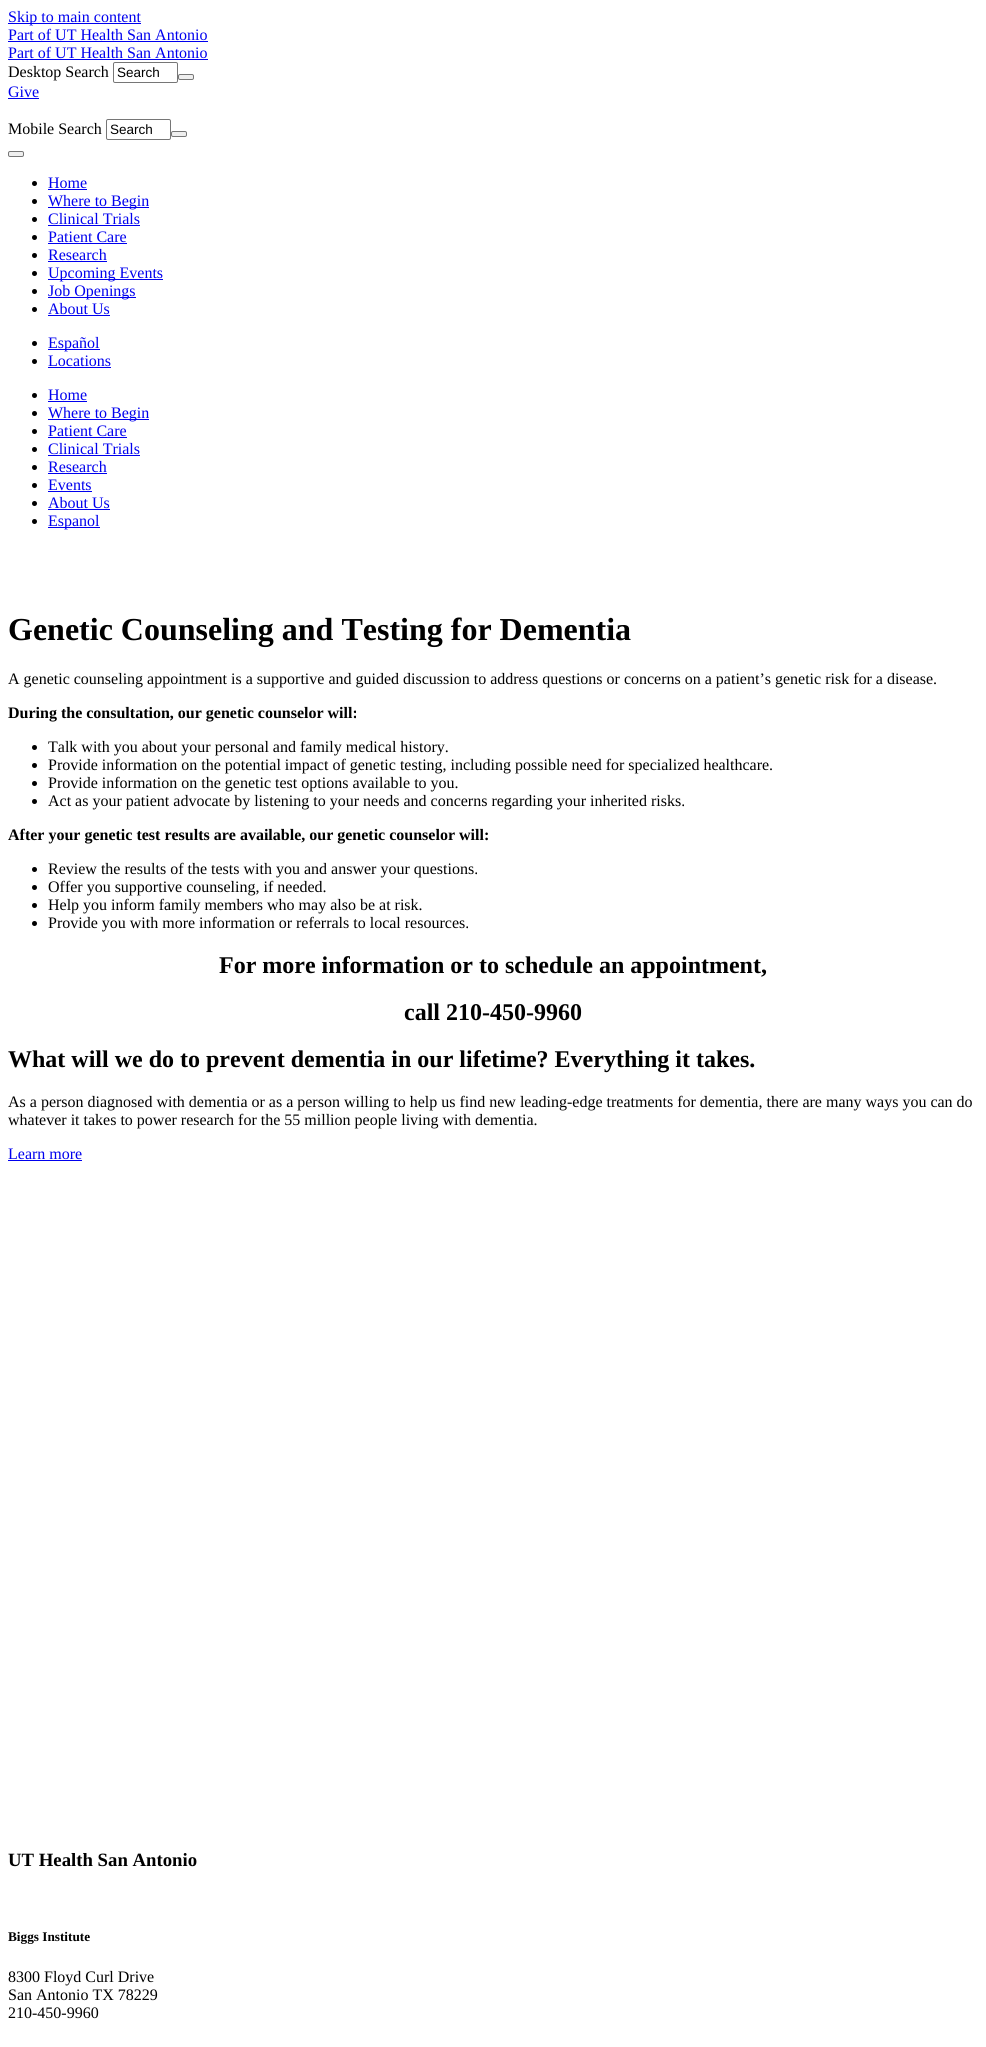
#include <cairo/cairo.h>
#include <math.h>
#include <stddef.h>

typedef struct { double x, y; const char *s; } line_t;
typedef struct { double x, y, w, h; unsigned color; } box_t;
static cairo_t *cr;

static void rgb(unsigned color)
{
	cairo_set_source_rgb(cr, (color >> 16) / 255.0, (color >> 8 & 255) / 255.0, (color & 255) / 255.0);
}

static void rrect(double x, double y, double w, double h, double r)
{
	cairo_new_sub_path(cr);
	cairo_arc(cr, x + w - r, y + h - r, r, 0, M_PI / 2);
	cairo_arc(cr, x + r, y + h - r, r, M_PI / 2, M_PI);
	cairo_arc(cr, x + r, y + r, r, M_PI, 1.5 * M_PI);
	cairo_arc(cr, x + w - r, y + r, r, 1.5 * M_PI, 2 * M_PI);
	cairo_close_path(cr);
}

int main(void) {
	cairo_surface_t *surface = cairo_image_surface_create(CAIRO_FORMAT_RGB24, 986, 2047);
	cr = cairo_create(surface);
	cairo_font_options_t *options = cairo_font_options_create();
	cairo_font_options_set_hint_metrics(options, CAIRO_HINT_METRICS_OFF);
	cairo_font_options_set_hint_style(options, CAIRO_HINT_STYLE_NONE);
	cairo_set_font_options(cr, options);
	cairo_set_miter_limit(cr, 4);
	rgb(0xffffff);
	cairo_paint(cr);
	{
		static const box_t items[] = {
			{8, 23, 133, 1, 0x0000ee},
			{8, 41, 200, 1, 0x0000ee},
			{8, 59, 200, 1, 0x0000ee},
		};
		for (size_t i = 0; i < sizeof items / sizeof *items; i++) {
			rgb(items[i].color);
			cairo_rectangle(cr, items[i].x, items[i].y, items[i].w, items[i].h);
			cairo_fill(cr);
		}
	}
	rrect(113.5, 62.5, 64, 20, 1.5);
	rgb(0x767676);
	cairo_set_line_width(cr, 1);
	cairo_stroke(cr);
	rgb(0xefefef);
	rrect(178.5, 74.5, 15, 5, 1.5);
	cairo_fill_preserve(cr);
	rgb(0x767676);
	cairo_stroke(cr);
	rgb(0x0000ee);
	cairo_rectangle(cr, 8, 98, 31, 1);
	cairo_fill(cr);
	rrect(106.5, 119.5, 64, 20, 1.5);
	rgb(0x767676);
	cairo_stroke(cr);
	rgb(0xefefef);
	rrect(171.5, 131.5, 15, 5, 1.5);
	cairo_fill_preserve(cr);
	rgb(0x767676);
	cairo_stroke(cr);
	rgb(0xefefef);
	rrect(8.5, 151.5, 15, 5, 1.5);
	cairo_fill_preserve(cr);
	rgb(0x767676);
	cairo_stroke(cr);
	rgb(0x000000);
	cairo_arc(cr, 34.5, 183.5, 2.5, 0, 2 * M_PI);
	cairo_fill(cr);
	rgb(0x0000ee);
	cairo_rectangle(cr, 48, 189, 39, 1);
	cairo_fill(cr);
	rgb(0x000000);
	cairo_arc(cr, 34.5, 201.5, 2.5, 0, 2 * M_PI);
	cairo_fill(cr);
	rgb(0x0000ee);
	cairo_rectangle(cr, 48, 207, 101, 1);
	cairo_fill(cr);
	rgb(0x000000);
	cairo_arc(cr, 34.5, 219.5, 2.5, 0, 2 * M_PI);
	cairo_fill(cr);
	rgb(0x0000ee);
	cairo_rectangle(cr, 48, 225, 92, 1);
	cairo_fill(cr);
	rgb(0x000000);
	cairo_arc(cr, 34.5, 237.5, 2.5, 0, 2 * M_PI);
	cairo_fill(cr);
	rgb(0x0000ee);
	cairo_rectangle(cr, 48, 243, 79, 1);
	cairo_fill(cr);
	rgb(0x000000);
	cairo_arc(cr, 34.5, 255.5, 2.5, 0, 2 * M_PI);
	cairo_fill(cr);
	rgb(0x0000ee);
	cairo_rectangle(cr, 48, 261, 59, 1);
	cairo_fill(cr);
	rgb(0x000000);
	cairo_arc(cr, 34.5, 273.5, 2.5, 0, 2 * M_PI);
	cairo_fill(cr);
	rgb(0x0000ee);
	cairo_rectangle(cr, 48, 279, 115, 1);
	cairo_fill(cr);
	rgb(0x000000);
	cairo_arc(cr, 34.5, 291.5, 2.5, 0, 2 * M_PI);
	cairo_fill(cr);
	rgb(0x0000ee);
	cairo_rectangle(cr, 48, 297, 88, 1);
	cairo_fill(cr);
	rgb(0x000000);
	cairo_arc(cr, 34.5, 309.5, 2.5, 0, 2 * M_PI);
	cairo_fill(cr);
	rgb(0x0000ee);
	cairo_rectangle(cr, 48, 315, 62, 1);
	cairo_fill(cr);
	rgb(0x000000);
	cairo_arc(cr, 34.5, 343.5, 2.5, 0, 2 * M_PI);
	cairo_fill(cr);
	rgb(0x0000ee);
	cairo_rectangle(cr, 48, 349, 52, 1);
	cairo_fill(cr);
	rgb(0x000000);
	cairo_arc(cr, 34.5, 361.5, 2.5, 0, 2 * M_PI);
	cairo_fill(cr);
	rgb(0x0000ee);
	cairo_rectangle(cr, 48, 367, 63, 1);
	cairo_fill(cr);
	rgb(0x000000);
	cairo_arc(cr, 34.5, 395.5, 2.5, 0, 2 * M_PI);
	cairo_fill(cr);
	rgb(0x0000ee);
	cairo_rectangle(cr, 48, 401, 39, 1);
	cairo_fill(cr);
	rgb(0x000000);
	cairo_arc(cr, 34.5, 413.5, 2.5, 0, 2 * M_PI);
	cairo_fill(cr);
	rgb(0x0000ee);
	cairo_rectangle(cr, 48, 419, 101, 1);
	cairo_fill(cr);
	rgb(0x000000);
	cairo_arc(cr, 34.5, 431.5, 2.5, 0, 2 * M_PI);
	cairo_fill(cr);
	rgb(0x0000ee);
	cairo_rectangle(cr, 48, 437, 79, 1);
	cairo_fill(cr);
	rgb(0x000000);
	cairo_arc(cr, 34.5, 449.5, 2.5, 0, 2 * M_PI);
	cairo_fill(cr);
	rgb(0x0000ee);
	cairo_rectangle(cr, 48, 455, 92, 1);
	cairo_fill(cr);
	rgb(0x000000);
	cairo_arc(cr, 34.5, 467.5, 2.5, 0, 2 * M_PI);
	cairo_fill(cr);
	rgb(0x0000ee);
	cairo_rectangle(cr, 48, 473, 59, 1);
	cairo_fill(cr);
	rgb(0x000000);
	cairo_arc(cr, 34.5, 485.5, 2.5, 0, 2 * M_PI);
	cairo_fill(cr);
	rgb(0x0000ee);
	cairo_rectangle(cr, 48, 491, 44, 1);
	cairo_fill(cr);
	rgb(0x000000);
	cairo_arc(cr, 34.5, 503.5, 2.5, 0, 2 * M_PI);
	cairo_fill(cr);
	rgb(0x0000ee);
	cairo_rectangle(cr, 48, 509, 62, 1);
	cairo_fill(cr);
	rgb(0x000000);
	cairo_arc(cr, 34.5, 521.5, 2.5, 0, 2 * M_PI);
	cairo_fill(cr);
	rgb(0x0000ee);
	cairo_rectangle(cr, 48, 527, 52, 1);
	cairo_fill(cr);
	rgb(0x000000);
	cairo_arc(cr, 34.5, 747.5, 2.5, 0, 2 * M_PI);
	cairo_fill(cr);
	cairo_arc(cr, 34.5, 765.5, 2.5, 0, 2 * M_PI);
	cairo_fill(cr);
	cairo_arc(cr, 34.5, 783.5, 2.5, 0, 2 * M_PI);
	cairo_fill(cr);
	cairo_arc(cr, 34.5, 801.5, 2.5, 0, 2 * M_PI);
	cairo_fill(cr);
	cairo_arc(cr, 34.5, 869.5, 2.5, 0, 2 * M_PI);
	cairo_fill(cr);
	cairo_arc(cr, 34.5, 887.5, 2.5, 0, 2 * M_PI);
	cairo_fill(cr);
	cairo_arc(cr, 34.5, 905.5, 2.5, 0, 2 * M_PI);
	cairo_fill(cr);
	cairo_arc(cr, 34.5, 923.5, 2.5, 0, 2 * M_PI);
	cairo_fill(cr);
	rgb(0x0000ee);
	cairo_rectangle(cr, 8, 1160, 74, 1);
	cairo_fill(cr);
	cairo_select_font_face(cr, "Liberation Serif", CAIRO_FONT_SLANT_NORMAL, CAIRO_FONT_WEIGHT_NORMAL);
	cairo_set_font_size(cr, 16);
	{
		static const line_t items[] = {
			{8, 22, "Skip to main content"},
			{8, 40, "Part of UT Health San Antonio"},
			{8, 58, "Part of UT Health San Antonio"},
		};
		for (size_t i = 0; i < sizeof items / sizeof *items; i++) {
			cairo_move_to(cr, items[i].x, items[i].y);
			cairo_show_text(cr, items[i].s);
		}
	}
	rgb(0x000000);
	cairo_move_to(cr, 8, 77);
	cairo_show_text(cr, "Desktop Search");
	cairo_select_font_face(cr, "Liberation Sans", CAIRO_FONT_SLANT_NORMAL, CAIRO_FONT_WEIGHT_NORMAL);
	cairo_set_font_size(cr, 13.5);
	cairo_move_to(cr, 117, 77);
	cairo_show_text(cr, "Search");
	cairo_select_font_face(cr, "Liberation Serif", CAIRO_FONT_SLANT_NORMAL, CAIRO_FONT_WEIGHT_NORMAL);
	cairo_set_font_size(cr, 16);
	rgb(0x0000ee);
	cairo_move_to(cr, 8, 97);
	cairo_show_text(cr, "Give");
	rgb(0x000000);
	cairo_move_to(cr, 8, 134);
	cairo_show_text(cr, "Mobile Search");
	cairo_select_font_face(cr, "Liberation Sans", CAIRO_FONT_SLANT_NORMAL, CAIRO_FONT_WEIGHT_NORMAL);
	cairo_set_font_size(cr, 13.5);
	cairo_move_to(cr, 110, 134);
	cairo_show_text(cr, "Search");
	cairo_select_font_face(cr, "Liberation Serif", CAIRO_FONT_SLANT_NORMAL, CAIRO_FONT_WEIGHT_NORMAL);
	cairo_set_font_size(cr, 16);
	rgb(0x0000ee);
	{
		static const line_t items[] = {
			{48, 188, "Home"},
			{48, 206, "Where to Begin"},
			{48, 224, "Clinical Trials"},
			{48, 242, "Patient Care"},
			{48, 260, "Research"},
			{48, 278, "Upcoming Events"},
			{48, 296, "Job Openings"},
			{48, 314, "About Us"},
			{48, 348, "Español"},
			{48, 366, "Locations"},
			{48, 400, "Home"},
			{48, 418, "Where to Begin"},
			{48, 436, "Patient Care"},
			{48, 454, "Clinical Trials"},
			{48, 472, "Research"},
			{48, 490, "Events"},
			{48, 508, "About Us"},
			{48, 526, "Espanol"},
		};
		for (size_t i = 0; i < sizeof items / sizeof *items; i++) {
			cairo_move_to(cr, items[i].x, items[i].y);
			cairo_show_text(cr, items[i].s);
		}
	}
	cairo_select_font_face(cr, "Liberation Serif", CAIRO_FONT_SLANT_NORMAL, CAIRO_FONT_WEIGHT_BOLD);
	cairo_set_font_size(cr, 32);
	rgb(0x000000);
	cairo_move_to(cr, 8, 640);
	cairo_show_text(cr, "Genetic Counseling and Testing for Dementia");
	cairo_select_font_face(cr, "Liberation Serif", CAIRO_FONT_SLANT_NORMAL, CAIRO_FONT_WEIGHT_NORMAL);
	cairo_set_font_size(cr, 16);
	cairo_move_to(cr, 8, 684);
	cairo_show_text(cr, "A genetic counseling appointment is a supportive and guided discussion to address questions or concerns on a patient’s genetic risk for a disease.");
	cairo_select_font_face(cr, "Liberation Serif", CAIRO_FONT_SLANT_NORMAL, CAIRO_FONT_WEIGHT_BOLD);
	cairo_move_to(cr, 8, 718);
	cairo_show_text(cr, "During the consultation, our genetic counselor will:");
	cairo_select_font_face(cr, "Liberation Serif", CAIRO_FONT_SLANT_NORMAL, CAIRO_FONT_WEIGHT_NORMAL);
	{
		static const line_t items[] = {
			{48, 752, "Talk with you about your personal and family medical history."},
			{48, 770, "Provide information on the potential impact of genetic testing, including possible need for specialized healthcare."},
			{48, 788, "Provide information on the genetic test options available to you."},
			{48, 806, "Act as your patient advocate by listening to your needs and concerns regarding your inherited risks."},
		};
		for (size_t i = 0; i < sizeof items / sizeof *items; i++) {
			cairo_move_to(cr, items[i].x, items[i].y);
			cairo_show_text(cr, items[i].s);
		}
	}
	cairo_select_font_face(cr, "Liberation Serif", CAIRO_FONT_SLANT_NORMAL, CAIRO_FONT_WEIGHT_BOLD);
	cairo_move_to(cr, 8, 840);
	cairo_show_text(cr, "After your genetic test results are available, our genetic counselor will:");
	cairo_select_font_face(cr, "Liberation Serif", CAIRO_FONT_SLANT_NORMAL, CAIRO_FONT_WEIGHT_NORMAL);
	{
		static const line_t items[] = {
			{48, 874, "Review the results of the tests with you and answer your questions."},
			{48, 892, "Offer you supportive counseling, if needed."},
			{48, 910, "Help you inform family members who may also be at risk."},
			{48, 928, "Provide you with more information or referrals to local resources."},
		};
		for (size_t i = 0; i < sizeof items / sizeof *items; i++) {
			cairo_move_to(cr, items[i].x, items[i].y);
			cairo_show_text(cr, items[i].s);
		}
	}
	cairo_select_font_face(cr, "Liberation Serif", CAIRO_FONT_SLANT_NORMAL, CAIRO_FONT_WEIGHT_BOLD);
	cairo_set_font_size(cr, 24);
	{
		static const line_t items[] = {
			{219, 973, "For more information or to schedule an appointment,"},
			{404, 1020, "call 210-450-9960"},
			{8, 1067, "What will we do to prevent dementia in our lifetime? Everything it takes."},
		};
		for (size_t i = 0; i < sizeof items / sizeof *items; i++) {
			cairo_move_to(cr, items[i].x, items[i].y);
			cairo_show_text(cr, items[i].s);
		}
	}
	cairo_select_font_face(cr, "Liberation Serif", CAIRO_FONT_SLANT_NORMAL, CAIRO_FONT_WEIGHT_NORMAL);
	cairo_set_font_size(cr, 16);
	cairo_move_to(cr, 8, 1107);
	cairo_show_text(cr, "As a person diagnosed with dementia or as a person willing to help us find new leading-edge treatments for dementia, there are many ways you can do");
	cairo_move_to(cr, 8, 1125);
	cairo_show_text(cr, "whatever it takes to power research for the 55 million people living with dementia.");
	rgb(0x0000ee);
	cairo_move_to(cr, 8, 1159);
	cairo_show_text(cr, "Learn more");
	cairo_select_font_face(cr, "Liberation Serif", CAIRO_FONT_SLANT_NORMAL, CAIRO_FONT_WEIGHT_BOLD);
	cairo_set_font_size(cr, 18.75);
	rgb(0x000000);
	cairo_move_to(cr, 8, 1866);
	cairo_show_text(cr, "UT Health San Antonio");
	cairo_set_font_size(cr, 13.25);
	cairo_move_to(cr, 8, 1941);
	cairo_show_text(cr, "Biggs Institute");
	cairo_select_font_face(cr, "Liberation Serif", CAIRO_FONT_SLANT_NORMAL, CAIRO_FONT_WEIGHT_NORMAL);
	cairo_set_font_size(cr, 16);
	{
		static const line_t items[] = {
			{8, 1982, "8300 Floyd Curl Drive"},
			{8, 2000, "San Antonio TX 78229"},
			{8, 2018, "210-450-9960"},
		};
		for (size_t i = 0; i < sizeof items / sizeof *items; i++) {
			cairo_move_to(cr, items[i].x, items[i].y);
			cairo_show_text(cr, items[i].s);
		}
	}
	cairo_surface_write_to_png(surface, "page.png");
	cairo_font_options_destroy(options);
	cairo_destroy(cr);
	cairo_surface_destroy(surface);
	return 0;
}
